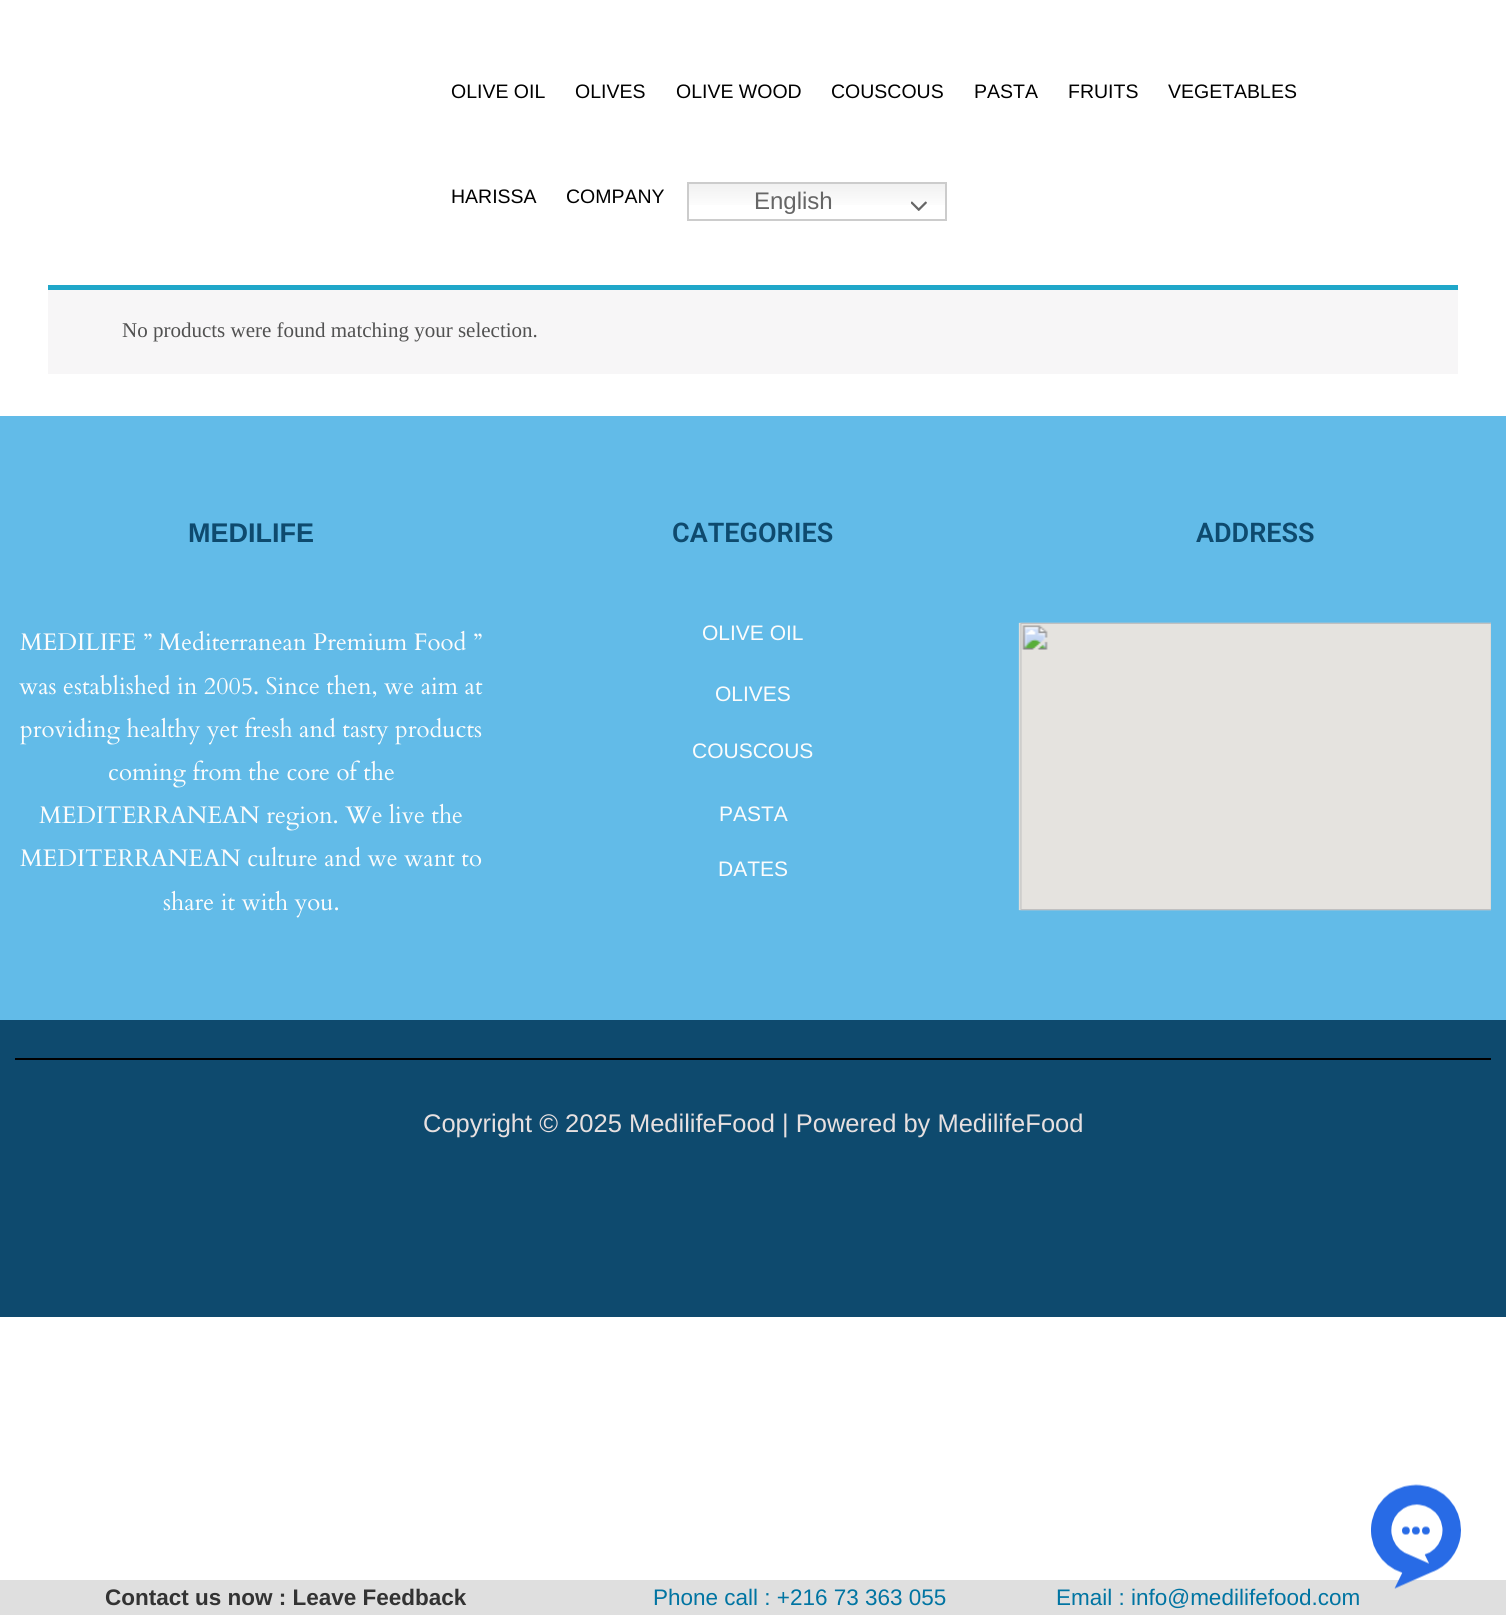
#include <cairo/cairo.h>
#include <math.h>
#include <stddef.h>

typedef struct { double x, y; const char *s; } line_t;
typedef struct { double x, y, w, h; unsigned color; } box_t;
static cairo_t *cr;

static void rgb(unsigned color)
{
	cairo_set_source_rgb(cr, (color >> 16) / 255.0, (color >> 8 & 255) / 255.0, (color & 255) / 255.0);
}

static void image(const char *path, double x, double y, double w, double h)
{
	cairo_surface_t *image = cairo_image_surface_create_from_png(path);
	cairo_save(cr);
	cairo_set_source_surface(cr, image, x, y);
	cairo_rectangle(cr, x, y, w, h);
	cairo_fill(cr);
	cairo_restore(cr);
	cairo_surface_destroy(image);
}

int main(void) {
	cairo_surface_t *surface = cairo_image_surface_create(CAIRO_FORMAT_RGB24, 1506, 1615);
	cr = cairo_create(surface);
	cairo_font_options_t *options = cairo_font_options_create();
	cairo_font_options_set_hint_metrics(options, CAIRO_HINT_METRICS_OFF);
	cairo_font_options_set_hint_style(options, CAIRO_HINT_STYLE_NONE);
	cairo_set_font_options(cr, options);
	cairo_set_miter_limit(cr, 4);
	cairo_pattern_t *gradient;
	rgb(0xffffff);
	cairo_paint(cr);
	gradient = cairo_pattern_create_linear(817, 181, 817, 221);
	cairo_pattern_add_color_stop_rgba(gradient, 0, 0.937, 0.937, 0.937, 1);
	cairo_pattern_add_color_stop_rgba(gradient, 0.7, 1, 1, 1, 1);
	cairo_set_source(cr, gradient);
	cairo_pattern_destroy(gradient);
	cairo_rectangle(cr, 689, 184, 256, 21);
	cairo_fill(cr);
	cairo_rectangle(cr, 688, 183, 258, 37);
	rgb(0xcccccc);
	cairo_stroke(cr);
	image("img/1.png", 911, 201, 16, 10);
	{
		static const box_t items[] = {
			{48, 290, 1410, 84, 0xf7f6f7},
			{48, 285, 1410, 5, 0x20a7c9},
			{0, 416, 1506, 604, 0x62bbe8},
		};
		for (size_t i = 0; i < sizeof items / sizeof *items; i++) {
			rgb(items[i].color);
			cairo_rectangle(cr, items[i].x, items[i].y, items[i].w, items[i].h);
			cairo_fill(cr);
		}
	}
	image("img/2.png", 1018, 622, 473, 289);
	{
		static const box_t items[] = {
			{0, 1020, 1506, 297, 0x0e4a6e},
			{15, 1058, 1476, 2, 0x000000},
			{0, 1580, 1506, 35, 0xdfdfdf},
		};
		for (size_t i = 0; i < sizeof items / sizeof *items; i++) {
			rgb(items[i].color);
			cairo_rectangle(cr, items[i].x, items[i].y, items[i].w, items[i].h);
			cairo_fill(cr);
		}
	}
	image("img/3.png", 1371, 1484, 90, 105);
	cairo_select_font_face(cr, "Liberation Sans", CAIRO_FONT_SLANT_NORMAL, CAIRO_FONT_WEIGHT_NORMAL);
	cairo_set_font_size(cr, 19.5);
	rgb(0x000000);
	{
		static const line_t items[] = {
			{451, 98, "OLIVE OIL"},
			{575, 98, "OLIVES"},
			{676, 98, "OLIVE WOOD"},
			{831, 98, "COUSCOUS"},
			{974, 98, "PASTA"},
			{1068, 98, "FRUITS"},
			{1168, 98, "VEGETABLES"},
			{451, 203, "HARISSA"},
			{566, 203, "COMPANY"},
		};
		for (size_t i = 0; i < sizeof items / sizeof *items; i++) {
			cairo_move_to(cr, items[i].x, items[i].y);
			cairo_show_text(cr, items[i].s);
		}
	}
	cairo_set_font_size(cr, 24);
	rgb(0x666666);
	cairo_move_to(cr, 754, 209);
	cairo_show_text(cr, "English");
	cairo_select_font_face(cr, "Liberation Serif", CAIRO_FONT_SLANT_NORMAL, CAIRO_FONT_WEIGHT_NORMAL);
	cairo_set_font_size(cr, 21);
	rgb(0x515151);
	cairo_move_to(cr, 122, 337);
	cairo_show_text(cr, "No products were found matching your selection.");
	cairo_select_font_face(cr, "Liberation Sans", CAIRO_FONT_SLANT_NORMAL, CAIRO_FONT_WEIGHT_BOLD);
	cairo_set_font_size(cr, 27);
	rgb(0x0e4a6e);
	cairo_move_to(cr, 188, 542);
	cairo_show_text(cr, "MEDILIFE");
	cairo_select_font_face(cr, "Cardo", CAIRO_FONT_SLANT_NORMAL, CAIRO_FONT_WEIGHT_NORMAL);
	cairo_set_font_size(cr, 24);
	rgb(0xfcfcfc);
	{
		static const line_t items[] = {
			{20, 650, "MEDILIFE ” Mediterranean Premium Food ”"},
			{19, 694, "was established in 2005. Since then, we aim at"},
			{20, 737, "providing healthy yet fresh and tasty products"},
			{108, 780, "coming from the core of the"},
			{39, 823, "MEDITERRANEAN region. We live the"},
			{20, 866, "MEDITERRANEAN culture and we want to"},
			{163, 910, "share it with you."},
		};
		for (size_t i = 0; i < sizeof items / sizeof *items; i++) {
			cairo_move_to(cr, items[i].x, items[i].y);
			cairo_show_text(cr, items[i].s);
		}
	}
	cairo_select_font_face(cr, "Roboto SemiBold", CAIRO_FONT_SLANT_NORMAL, CAIRO_FONT_WEIGHT_NORMAL);
	cairo_set_font_size(cr, 27);
	rgb(0x0e4a6e);
	cairo_move_to(cr, 672, 542);
	cairo_show_text(cr, "CATEGORIES");
	cairo_select_font_face(cr, "Liberation Sans", CAIRO_FONT_SLANT_NORMAL, CAIRO_FONT_WEIGHT_NORMAL);
	cairo_set_font_size(cr, 21);
	rgb(0xfcfcfc);
	{
		static const line_t items[] = {
			{702, 640, "OLIVE OIL"},
			{715, 701, "OLIVES"},
			{692, 758, "COUSCOUS"},
			{719, 821, "PASTA"},
			{718, 876, "DATES"},
		};
		for (size_t i = 0; i < sizeof items / sizeof *items; i++) {
			cairo_move_to(cr, items[i].x, items[i].y);
			cairo_show_text(cr, items[i].s);
		}
	}
	cairo_select_font_face(cr, "Roboto SemiBold", CAIRO_FONT_SLANT_NORMAL, CAIRO_FONT_WEIGHT_NORMAL);
	cairo_set_font_size(cr, 27);
	rgb(0x0e4a6e);
	cairo_move_to(cr, 1196, 542);
	cairo_show_text(cr, "ADDRESS");
	cairo_select_font_face(cr, "Liberation Sans", CAIRO_FONT_SLANT_NORMAL, CAIRO_FONT_WEIGHT_NORMAL);
	cairo_set_font_size(cr, 25.5);
	rgb(0xe7e0e0);
	cairo_move_to(cr, 423, 1132);
	cairo_show_text(cr, "Copyright © 2025 MedilifeFood | Powered by MedilifeFood");
	cairo_select_font_face(cr, "Liberation Sans", CAIRO_FONT_SLANT_NORMAL, CAIRO_FONT_WEIGHT_BOLD);
	cairo_set_font_size(cr, 22.5);
	rgb(0x333333);
	cairo_move_to(cr, 105, 1605);
	cairo_show_text(cr, "Contact us now : Leave Feedback");
	cairo_select_font_face(cr, "Liberation Sans", CAIRO_FONT_SLANT_NORMAL, CAIRO_FONT_WEIGHT_NORMAL);
	rgb(0x0074a2);
	cairo_move_to(cr, 653, 1605);
	cairo_show_text(cr, "Phone call : +216 73 363 055");
	cairo_move_to(cr, 1056, 1605);
	cairo_show_text(cr, "Email : info@medilifefood.com");
	cairo_surface_write_to_png(surface, "page.png");
	cairo_font_options_destroy(options);
	cairo_destroy(cr);
	cairo_surface_destroy(surface);
	return 0;
}
